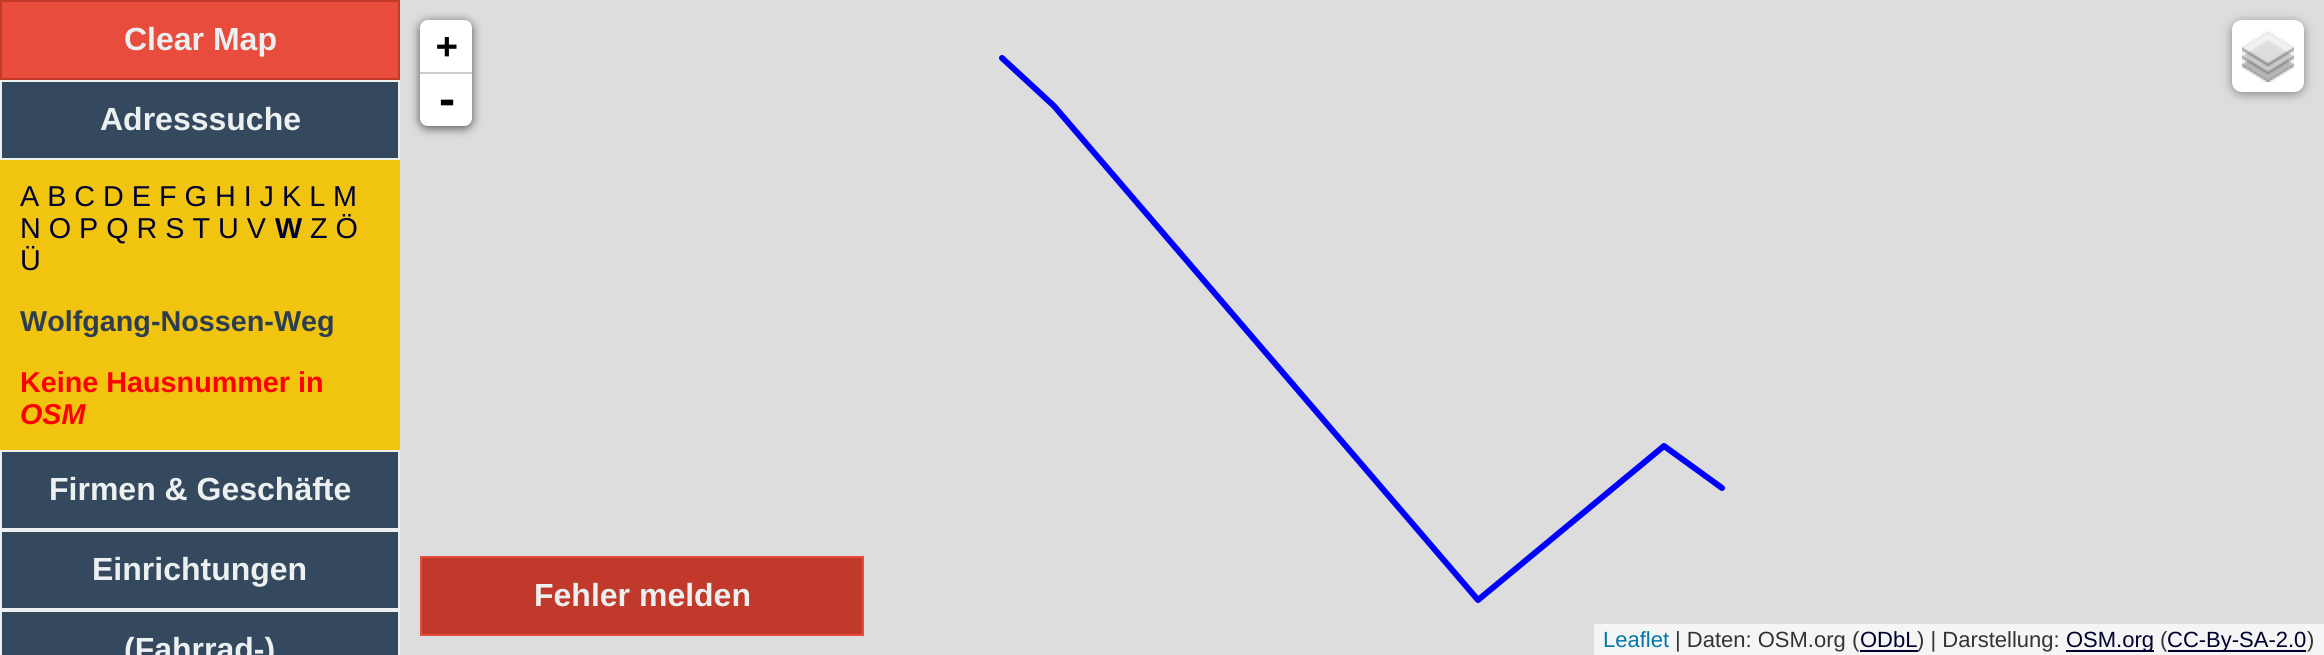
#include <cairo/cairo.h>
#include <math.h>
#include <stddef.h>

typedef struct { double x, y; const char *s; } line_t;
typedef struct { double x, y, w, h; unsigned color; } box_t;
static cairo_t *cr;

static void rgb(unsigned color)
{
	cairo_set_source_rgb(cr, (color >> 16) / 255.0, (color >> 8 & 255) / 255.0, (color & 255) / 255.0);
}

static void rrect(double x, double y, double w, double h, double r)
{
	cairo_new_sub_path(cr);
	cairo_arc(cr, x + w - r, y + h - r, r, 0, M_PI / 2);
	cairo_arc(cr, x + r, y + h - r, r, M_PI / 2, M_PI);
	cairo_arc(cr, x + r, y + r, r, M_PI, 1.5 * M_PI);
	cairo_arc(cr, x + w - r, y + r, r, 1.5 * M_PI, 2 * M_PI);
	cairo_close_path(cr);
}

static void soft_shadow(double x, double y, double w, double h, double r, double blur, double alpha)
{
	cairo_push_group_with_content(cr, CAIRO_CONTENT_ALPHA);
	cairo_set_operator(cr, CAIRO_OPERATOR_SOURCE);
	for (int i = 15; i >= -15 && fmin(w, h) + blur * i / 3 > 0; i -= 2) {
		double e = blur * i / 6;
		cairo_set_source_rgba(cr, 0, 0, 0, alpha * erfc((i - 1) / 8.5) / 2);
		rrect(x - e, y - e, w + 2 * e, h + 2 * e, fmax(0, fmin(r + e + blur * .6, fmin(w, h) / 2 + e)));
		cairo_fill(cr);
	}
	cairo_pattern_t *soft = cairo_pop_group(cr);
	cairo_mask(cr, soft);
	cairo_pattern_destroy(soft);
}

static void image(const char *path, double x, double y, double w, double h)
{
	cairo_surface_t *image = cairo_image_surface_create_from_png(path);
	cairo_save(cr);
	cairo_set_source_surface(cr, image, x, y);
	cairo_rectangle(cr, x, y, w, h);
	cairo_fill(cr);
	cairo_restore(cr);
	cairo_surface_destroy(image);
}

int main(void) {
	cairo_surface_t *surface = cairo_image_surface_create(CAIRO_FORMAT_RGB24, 2324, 655);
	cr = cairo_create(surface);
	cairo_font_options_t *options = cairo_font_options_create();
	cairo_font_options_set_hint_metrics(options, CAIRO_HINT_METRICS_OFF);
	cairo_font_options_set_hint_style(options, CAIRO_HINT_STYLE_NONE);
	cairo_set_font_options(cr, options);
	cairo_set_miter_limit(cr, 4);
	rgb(0xe74c3c);
	cairo_paint(cr);
	cairo_rectangle(cr, 1, 1, 398, 78);
	rgb(0xc0392b);
	cairo_stroke(cr);
	rgb(0x34495e);
	cairo_rectangle(cr, 1, 81, 398, 78);
	cairo_fill_preserve(cr);
	rgb(0xecf0f1);
	cairo_stroke(cr);
	rgb(0xf1c40f);
	cairo_rectangle(cr, 0, 160, 400, 290);
	cairo_fill(cr);
	rgb(0x34495e);
	cairo_rectangle(cr, 1, 451, 398, 78);
	cairo_fill_preserve(cr);
	rgb(0xecf0f1);
	cairo_stroke(cr);
	rgb(0x34495e);
	cairo_rectangle(cr, 1, 531, 398, 78);
	cairo_fill_preserve(cr);
	rgb(0xecf0f1);
	cairo_stroke(cr);
	rgb(0x34495e);
	cairo_rectangle(cr, 1, 611, 398, 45);
	cairo_fill_preserve(cr);
	rgb(0xecf0f1);
	cairo_stroke(cr);
	rgb(0xdddddd);
	cairo_rectangle(cr, 400, 0, 1924, 655);
	cairo_fill(cr);
	rgb(0x000000);
	soft_shadow(420, 22, 52, 106, 8, 5, 0.65);
	rgb(0xffffff);
	cairo_new_path(cr);
	cairo_move_to(cr, 428, 20);
	cairo_line_to(cr, 464, 20);
	cairo_curve_to(cr, 468.5, 20, 472, 23.5, 472, 28);
	cairo_line_to(cr, 472, 74);
	cairo_line_to(cr, 420, 74);
	cairo_line_to(cr, 420, 28);
	cairo_curve_to(cr, 420, 23.5, 423.5, 20, 428, 20);
	cairo_close_path(cr);
	cairo_fill(cr);
	rgb(0xcccccc);
	cairo_rectangle(cr, 420, 72, 52, 2);
	cairo_fill(cr);
	rgb(0xffffff);
	cairo_new_path(cr);
	cairo_move_to(cr, 420, 74);
	cairo_line_to(cr, 472, 74);
	cairo_line_to(cr, 472, 118);
	cairo_curve_to(cr, 472, 122.5, 468.5, 126, 464, 126);
	cairo_line_to(cr, 428, 126);
	cairo_curve_to(cr, 423.5, 126, 420, 122.5, 420, 118);
	cairo_close_path(cr);
	cairo_fill(cr);
	rgb(0x000000);
	soft_shadow(2232, 22, 72, 72, 10, 5, 0.4);
	rgb(0xffffff);
	rrect(2232, 20, 72, 72, 10);
	cairo_fill(cr);
	image("img/1.png", 2242, 31, 52, 51);
	{
		static const box_t items[] = {
			{1594, 624, 730, 31, 0xf5f5f5},
			{1860, 650, 58, 2, 0x00002f},
			{2066, 650, 88, 2, 0x00002f},
			{2168, 650, 138, 2, 0x00002f},
		};
		for (size_t i = 0; i < sizeof items / sizeof *items; i++) {
			rgb(items[i].color);
			cairo_rectangle(cr, items[i].x, items[i].y, items[i].w, items[i].h);
			cairo_fill(cr);
		}
	}
	cairo_new_path(cr);
	cairo_move_to(cr, 1722, 488);
	cairo_line_to(cr, 1664, 446);
	cairo_line_to(cr, 1478, 600);
	cairo_line_to(cr, 1054, 106);
	cairo_line_to(cr, 1002, 58);
	rgb(0x0000ff);
	cairo_set_line_width(cr, 6);
	cairo_set_line_cap(cr, CAIRO_LINE_CAP_ROUND);
	cairo_set_line_join(cr, CAIRO_LINE_JOIN_ROUND);
	cairo_stroke(cr);
	rgb(0xc0392b);
	cairo_rectangle(cr, 421, 557, 442, 78);
	cairo_fill_preserve(cr);
	rgb(0xe74c3c);
	cairo_set_line_width(cr, 2);
	cairo_set_line_cap(cr, CAIRO_LINE_CAP_BUTT);
	cairo_set_line_join(cr, CAIRO_LINE_JOIN_MITER);
	cairo_stroke(cr);
	cairo_select_font_face(cr, "Liberation Sans", CAIRO_FONT_SLANT_NORMAL, CAIRO_FONT_WEIGHT_BOLD);
	cairo_set_font_size(cr, 32);
	rgb(0xecf0f1);
	cairo_move_to(cr, 124, 50);
	cairo_show_text(cr, "Clear Map");
	cairo_move_to(cr, 100, 130);
	cairo_show_text(cr, "Adresssuche");
	cairo_select_font_face(cr, "Liberation Sans", CAIRO_FONT_SLANT_NORMAL, CAIRO_FONT_WEIGHT_NORMAL);
	cairo_set_font_size(cr, 28.75);
	rgb(0x00002f);
	cairo_move_to(cr, 20, 206);
	cairo_show_text(cr, "A B C D E F G H I J K L M");
	cairo_move_to(cr, 20, 238);
	cairo_show_text(cr, "N O P Q R S T U V");
	cairo_select_font_face(cr, "Liberation Sans", CAIRO_FONT_SLANT_NORMAL, CAIRO_FONT_WEIGHT_BOLD);
	cairo_move_to(cr, 275, 238);
	cairo_show_text(cr, "W");
	cairo_select_font_face(cr, "Liberation Sans", CAIRO_FONT_SLANT_NORMAL, CAIRO_FONT_WEIGHT_NORMAL);
	cairo_move_to(cr, 310, 238);
	cairo_show_text(cr, "Z Ö");
	cairo_move_to(cr, 20, 270);
	cairo_show_text(cr, "Ü");
	cairo_select_font_face(cr, "Liberation Sans", CAIRO_FONT_SLANT_NORMAL, CAIRO_FONT_WEIGHT_BOLD);
	rgb(0x2c3e50);
	cairo_move_to(cr, 20, 331);
	cairo_show_text(cr, "Wolfgang-Nossen-Weg");
	rgb(0xff0000);
	cairo_move_to(cr, 20, 392);
	cairo_show_text(cr, "Keine Hausnummer in");
	cairo_select_font_face(cr, "Liberation Sans", CAIRO_FONT_SLANT_ITALIC, CAIRO_FONT_WEIGHT_BOLD);
	cairo_move_to(cr, 20, 424);
	cairo_show_text(cr, "OSM");
	cairo_select_font_face(cr, "Liberation Sans", CAIRO_FONT_SLANT_NORMAL, CAIRO_FONT_WEIGHT_BOLD);
	cairo_set_font_size(cr, 32);
	rgb(0xecf0f1);
	{
		static const line_t items[] = {
			{49, 500, "Firmen & Geschäfte"},
			{92, 580, "Einrichtungen"},
			{124, 660, "(Fahrrad-)"},
		};
		for (size_t i = 0; i < sizeof items / sizeof *items; i++) {
			cairo_move_to(cr, items[i].x, items[i].y);
			cairo_show_text(cr, items[i].s);
		}
	}
	cairo_select_font_face(cr, "DejaVu Sans Mono", CAIRO_FONT_SLANT_NORMAL, CAIRO_FONT_WEIGHT_BOLD);
	cairo_set_font_size(cr, 36);
	rgb(0x000000);
	cairo_move_to(cr, 436, 58);
	cairo_show_text(cr, "+");
	cairo_set_font_size(cr, 40);
	cairo_move_to(cr, 435, 114);
	cairo_show_text(cr, "-");
	cairo_select_font_face(cr, "Liberation Sans", CAIRO_FONT_SLANT_NORMAL, CAIRO_FONT_WEIGHT_NORMAL);
	cairo_set_font_size(cr, 22);
	rgb(0x0078a8);
	cairo_move_to(cr, 1603, 647);
	cairo_show_text(cr, "Leaflet");
	rgb(0x333333);
	cairo_move_to(cr, 1675, 647);
	cairo_show_text(cr, "| Daten: OSM.org (");
	rgb(0x00002f);
	cairo_move_to(cr, 1860, 647);
	cairo_show_text(cr, "ODbL");
	rgb(0x333333);
	cairo_move_to(cr, 1917, 647);
	cairo_show_text(cr, ") | Darstellung:");
	rgb(0x00002f);
	cairo_move_to(cr, 2066, 647);
	cairo_show_text(cr, "OSM.org");
	rgb(0x333333);
	cairo_move_to(cr, 2160, 647);
	cairo_show_text(cr, "(");
	rgb(0x00002f);
	cairo_move_to(cr, 2167, 647);
	cairo_show_text(cr, "CC-By-SA-2.0");
	rgb(0x333333);
	cairo_move_to(cr, 2307, 647);
	cairo_show_text(cr, ")");
	cairo_select_font_face(cr, "Liberation Sans", CAIRO_FONT_SLANT_NORMAL, CAIRO_FONT_WEIGHT_BOLD);
	cairo_set_font_size(cr, 32);
	rgb(0xecf0f1);
	cairo_move_to(cr, 534, 606);
	cairo_show_text(cr, "Fehler melden");
	cairo_surface_write_to_png(surface, "page.png");
	cairo_font_options_destroy(options);
	cairo_destroy(cr);
	cairo_surface_destroy(surface);
	return 0;
}
